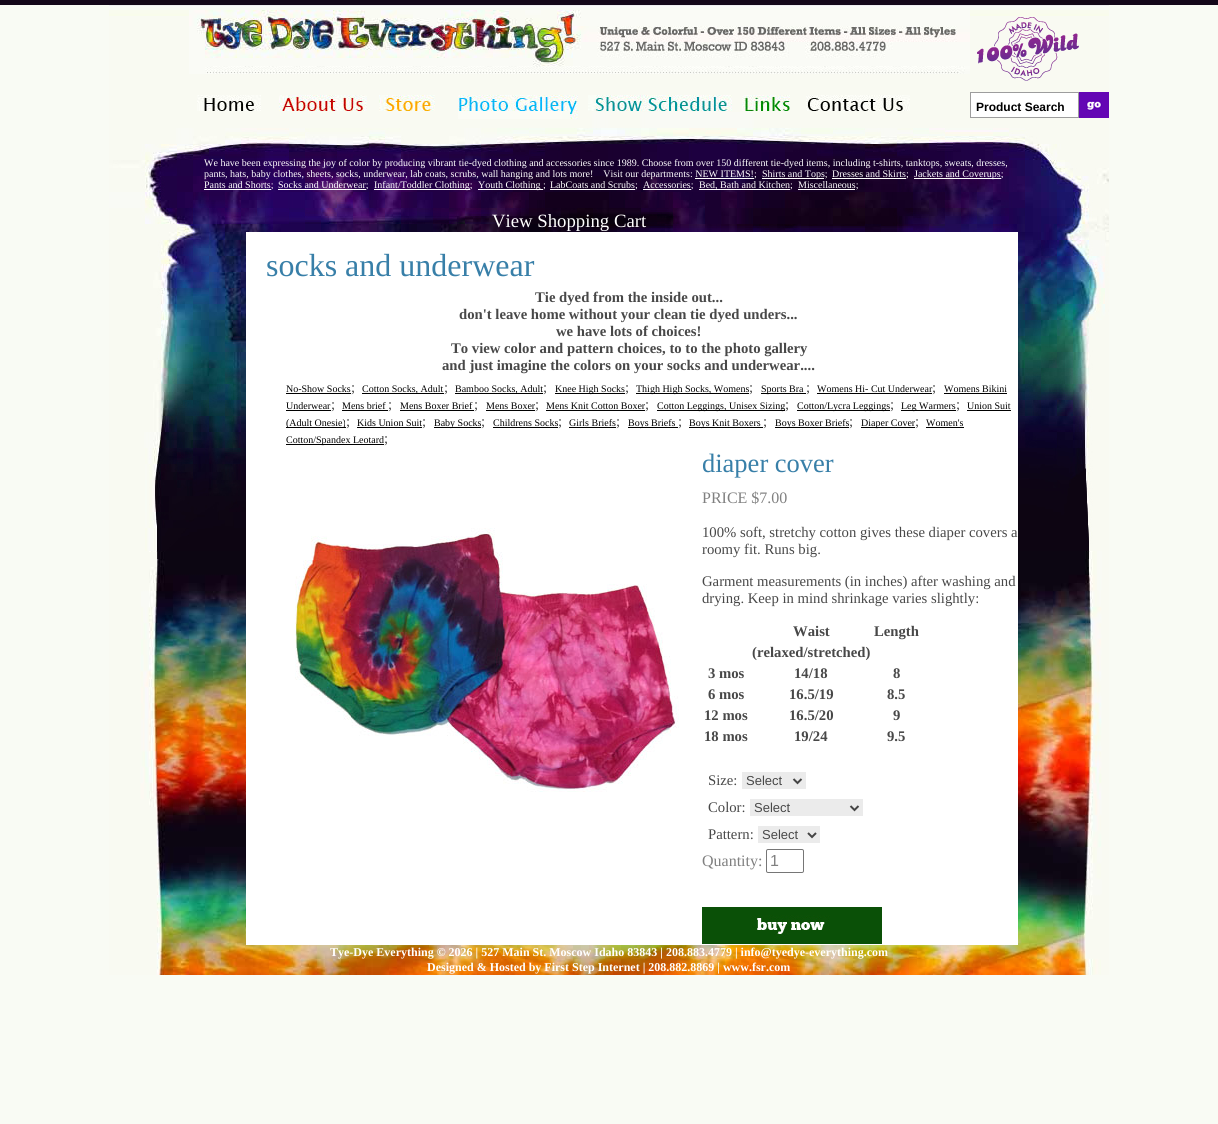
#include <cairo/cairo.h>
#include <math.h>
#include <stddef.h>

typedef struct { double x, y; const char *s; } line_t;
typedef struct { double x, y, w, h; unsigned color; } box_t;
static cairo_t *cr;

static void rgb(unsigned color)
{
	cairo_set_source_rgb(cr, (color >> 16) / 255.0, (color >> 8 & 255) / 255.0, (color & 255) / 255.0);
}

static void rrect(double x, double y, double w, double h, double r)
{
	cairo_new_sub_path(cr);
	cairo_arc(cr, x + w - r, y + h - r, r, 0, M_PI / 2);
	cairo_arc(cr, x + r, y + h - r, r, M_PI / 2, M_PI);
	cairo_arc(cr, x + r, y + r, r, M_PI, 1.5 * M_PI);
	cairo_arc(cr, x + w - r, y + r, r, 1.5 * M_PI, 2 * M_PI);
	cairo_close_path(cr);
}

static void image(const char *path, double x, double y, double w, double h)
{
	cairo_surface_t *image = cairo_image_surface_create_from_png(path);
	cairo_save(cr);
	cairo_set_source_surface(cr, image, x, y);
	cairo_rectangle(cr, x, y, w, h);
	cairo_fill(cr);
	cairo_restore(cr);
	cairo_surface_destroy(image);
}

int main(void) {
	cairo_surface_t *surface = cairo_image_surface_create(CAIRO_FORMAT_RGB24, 1218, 1124);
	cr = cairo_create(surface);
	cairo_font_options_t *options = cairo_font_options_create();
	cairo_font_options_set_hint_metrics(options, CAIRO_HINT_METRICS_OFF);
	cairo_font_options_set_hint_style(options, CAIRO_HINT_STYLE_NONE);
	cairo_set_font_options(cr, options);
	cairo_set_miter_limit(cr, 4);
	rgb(0xf9fbf4);
	cairo_paint(cr);
	rgb(0x140719);
	cairo_rectangle(cr, 0, 0, 1218, 5);
	cairo_fill(cr);
	image("img/1.png", 109, 551, 1000, 424);
	image("img/2.png", 109, 0, 1000, 551);
	image("img/3.png", 189, 10, 781, 64);
	image("img/4.png", 977, 17, 102, 64);
	image("img/5.png", 197, 95, 64, 16);
	image("img/6.png", 279, 95, 88, 16);
	image("img/7.png", 379, 95, 56, 16);
	image("img/8.png", 458, 95, 120, 24);
	image("img/9.png", 588, 95, 144, 16);
	image("img/10.png", 742, 95, 48, 16);
	image("img/11.png", 806, 95, 104, 16);
	rgb(0xffffff);
	cairo_rectangle(cr, 970.5, 92.5, 108, 25);
	cairo_fill_preserve(cr);
	rgb(0x9d9d9d);
	cairo_set_line_width(cr, 1);
	cairo_stroke(cr);
	image("img/12.png", 1079, 92, 30, 26);
	{
		static const box_t items[] = {
			{762, 178, 62, 1, 0xffffff},
			{832, 178, 74, 1, 0xffffff},
			{914, 178, 87, 1, 0xffffff},
			{695, 178, 59, 1, 0xffffff},
			{204, 189, 67, 1, 0xffffff},
			{278, 189, 88, 1, 0xffffff},
			{374, 189, 96, 1, 0xffffff},
			{478, 189, 65, 1, 0xffffff},
			{550, 189, 85, 1, 0xffffff},
			{643, 189, 48, 1, 0xffffff},
			{699, 189, 91, 1, 0xffffff},
			{798, 189, 57, 1, 0xffffff},
			{246, 232, 772, 713, 0xffffff},
			{286, 393, 65, 1, 0x000000},
			{362, 393, 82, 1, 0x000000},
			{455, 393, 88, 1, 0x000000},
			{555, 393, 70, 1, 0x000000},
			{636, 393, 113, 1, 0x000000},
			{761, 393, 45, 1, 0x000000},
			{817, 393, 115, 1, 0x000000},
			{944, 393, 63, 1, 0x000000},
			{286, 410, 45, 1, 0x000000},
			{342, 410, 46, 1, 0x000000},
			{400, 410, 74, 1, 0x000000},
			{486, 410, 49, 1, 0x000000},
			{546, 410, 99, 1, 0x000000},
			{657, 410, 128, 1, 0x000000},
			{797, 410, 93, 1, 0x000000},
			{901, 410, 55, 1, 0x000000},
			{967, 410, 44, 1, 0x000000},
			{286, 427, 60, 1, 0x000000},
			{357, 427, 65, 1, 0x000000},
			{434, 427, 47, 1, 0x000000},
			{493, 427, 65, 1, 0x000000},
			{569, 427, 47, 1, 0x000000},
			{628, 427, 50, 1, 0x000000},
			{689, 427, 74, 1, 0x000000},
			{775, 427, 74, 1, 0x000000},
			{861, 427, 54, 1, 0x000000},
			{926, 427, 38, 1, 0x000000},
			{286, 444, 98, 1, 0x000000},
		};
		for (size_t i = 0; i < sizeof items / sizeof *items; i++) {
			rgb(items[i].color);
			cairo_rectangle(cr, items[i].x, items[i].y, items[i].w, items[i].h);
			cairo_fill(cr);
		}
	}
	image("img/13.png", 295, 528, 384, 264);
	rgb(0xebebeb);
	cairo_rectangle(cr, 742, 772, 64, 17);
	cairo_fill(cr);
	cairo_new_path(cr);
	cairo_move_to(cr, 793.5, 779);
	cairo_line_to(cr, 797.5, 783);
	cairo_line_to(cr, 801.5, 779);
	rgb(0x444444);
	cairo_set_line_width(cr, 2);
	cairo_stroke(cr);
	rgb(0xebebeb);
	cairo_rectangle(cr, 750, 799, 113, 17);
	cairo_fill(cr);
	cairo_new_path(cr);
	cairo_move_to(cr, 850.5, 806);
	cairo_line_to(cr, 854.5, 810);
	cairo_line_to(cr, 858.5, 806);
	rgb(0x444444);
	cairo_stroke(cr);
	rgb(0xebebeb);
	cairo_rectangle(cr, 758, 826, 62, 17);
	cairo_fill(cr);
	cairo_new_path(cr);
	cairo_move_to(cr, 808, 833);
	cairo_line_to(cr, 812, 837);
	cairo_line_to(cr, 816, 833);
	rgb(0x444444);
	cairo_stroke(cr);
	rrect(766.5, 849.5, 37, 23, 1.5);
	rgb(0x767676);
	cairo_set_line_width(cr, 1);
	cairo_stroke(cr);
	image("img/14.png", 702, 907, 180, 37);
	cairo_select_font_face(cr, "Liberation Sans", CAIRO_FONT_SLANT_NORMAL, CAIRO_FONT_WEIGHT_BOLD);
	cairo_set_font_size(cr, 12);
	rgb(0x000000);
	cairo_move_to(cr, 976, 111);
	cairo_show_text(cr, "Product Search");
	cairo_select_font_face(cr, "Liberation Serif", CAIRO_FONT_SLANT_NORMAL, CAIRO_FONT_WEIGHT_NORMAL);
	cairo_set_font_size(cr, 10);
	rgb(0xffffff);
	{
		static const line_t items[] = {
			{204, 166, "We have been expressing the joy of color by producing vibrant tie-dyed clothing and accessories since 1989. Choose from over 150 different tie-dyed items, including t-shirts, tanktops, sweats, dresses,"},
			{204, 177, "pants, hats, baby clothes, sheets, socks, underwear, lab coats, scrubs, wall hanging and lots more!    Visit our departments: NEW ITEMS!;"},
			{762, 177, "Shirts and Tops;"},
			{832, 177, "Dresses and Skirts;"},
			{914, 177, "Jackets and Coverups;"},
			{204, 188, "Pants and Shorts;"},
			{278, 188, "Socks and Underwear;"},
			{374, 188, "Infant/Toddler Clothing;"},
			{478, 188, "Youth Clothing ;"},
			{550, 188, "LabCoats and Scrubs;"},
			{643, 188, "Accessories;"},
			{699, 188, "Bed, Bath and Kitchen;"},
			{798, 188, "Miscellaneous;"},
		};
		for (size_t i = 0; i < sizeof items / sizeof *items; i++) {
			cairo_move_to(cr, items[i].x, items[i].y);
			cairo_show_text(cr, items[i].s);
		}
	}
	cairo_set_font_size(cr, 18.75);
	cairo_move_to(cr, 492, 227);
	cairo_show_text(cr, "View Shopping Cart");
	cairo_set_font_size(cr, 32);
	rgb(0x387fa8);
	cairo_move_to(cr, 266, 276);
	cairo_show_text(cr, "socks and underwear");
	cairo_select_font_face(cr, "Liberation Serif", CAIRO_FONT_SLANT_NORMAL, CAIRO_FONT_WEIGHT_BOLD);
	cairo_set_font_size(cr, 14.7);
	rgb(0x484848);
	{
		static const line_t items[] = {
			{535, 302, "Tie dyed from the inside out..."},
			{459, 319, "don't leave home without your clean tie dyed unders..."},
			{556, 336, "we have lots of choices!"},
			{451, 353, "To view color and pattern choices, to to the photo gallery"},
			{442, 370, "and just imagine the colors on your socks and underwear...."},
		};
		for (size_t i = 0; i < sizeof items / sizeof *items; i++) {
			cairo_move_to(cr, items[i].x, items[i].y);
			cairo_show_text(cr, items[i].s);
		}
	}
	cairo_select_font_face(cr, "Liberation Serif", CAIRO_FONT_SLANT_NORMAL, CAIRO_FONT_WEIGHT_NORMAL);
	cairo_set_font_size(cr, 10);
	rgb(0x000000);
	cairo_move_to(cr, 286, 392);
	cairo_show_text(cr, "No-Show Socks");
	cairo_set_font_size(cr, 14.7);
	rgb(0x484848);
	cairo_move_to(cr, 351, 392);
	cairo_show_text(cr, ";");
	cairo_set_font_size(cr, 10);
	rgb(0x000000);
	cairo_move_to(cr, 362, 392);
	cairo_show_text(cr, "Cotton Socks, Adult");
	cairo_set_font_size(cr, 14.7);
	rgb(0x484848);
	cairo_move_to(cr, 444, 392);
	cairo_show_text(cr, ";");
	cairo_set_font_size(cr, 10);
	rgb(0x000000);
	cairo_move_to(cr, 455, 392);
	cairo_show_text(cr, "Bamboo Socks, Adult");
	cairo_set_font_size(cr, 14.7);
	rgb(0x484848);
	cairo_move_to(cr, 543, 392);
	cairo_show_text(cr, ";");
	cairo_set_font_size(cr, 10);
	rgb(0x000000);
	cairo_move_to(cr, 555, 392);
	cairo_show_text(cr, "Knee High Socks");
	cairo_set_font_size(cr, 14.7);
	rgb(0x484848);
	cairo_move_to(cr, 625, 392);
	cairo_show_text(cr, ";");
	cairo_set_font_size(cr, 10);
	rgb(0x000000);
	cairo_move_to(cr, 636, 392);
	cairo_show_text(cr, "Thigh High Socks, Womens");
	cairo_set_font_size(cr, 14.7);
	rgb(0x484848);
	cairo_move_to(cr, 749, 392);
	cairo_show_text(cr, ";");
	cairo_set_font_size(cr, 10);
	rgb(0x000000);
	cairo_move_to(cr, 761, 392);
	cairo_show_text(cr, "Sports Bra");
	cairo_set_font_size(cr, 14.7);
	rgb(0x484848);
	cairo_move_to(cr, 806, 392);
	cairo_show_text(cr, ";");
	cairo_set_font_size(cr, 10);
	rgb(0x000000);
	cairo_move_to(cr, 817, 392);
	cairo_show_text(cr, "Womens Hi- Cut Underwear");
	cairo_set_font_size(cr, 14.7);
	rgb(0x484848);
	cairo_move_to(cr, 932, 392);
	cairo_show_text(cr, ";");
	cairo_set_font_size(cr, 10);
	rgb(0x000000);
	cairo_move_to(cr, 944, 392);
	cairo_show_text(cr, "Womens Bikini");
	cairo_move_to(cr, 286, 409);
	cairo_show_text(cr, "Underwear");
	cairo_set_font_size(cr, 14.7);
	rgb(0x484848);
	cairo_move_to(cr, 331, 409);
	cairo_show_text(cr, ";");
	cairo_set_font_size(cr, 10);
	rgb(0x000000);
	cairo_move_to(cr, 342, 409);
	cairo_show_text(cr, "Mens brief");
	cairo_set_font_size(cr, 14.7);
	rgb(0x484848);
	cairo_move_to(cr, 388, 409);
	cairo_show_text(cr, ";");
	cairo_set_font_size(cr, 10);
	rgb(0x000000);
	cairo_move_to(cr, 400, 409);
	cairo_show_text(cr, "Mens Boxer Brief");
	cairo_set_font_size(cr, 14.7);
	rgb(0x484848);
	cairo_move_to(cr, 474, 409);
	cairo_show_text(cr, ";");
	cairo_set_font_size(cr, 10);
	rgb(0x000000);
	cairo_move_to(cr, 486, 409);
	cairo_show_text(cr, "Mens Boxer");
	cairo_set_font_size(cr, 14.7);
	rgb(0x484848);
	cairo_move_to(cr, 535, 409);
	cairo_show_text(cr, ";");
	cairo_set_font_size(cr, 10);
	rgb(0x000000);
	cairo_move_to(cr, 546, 409);
	cairo_show_text(cr, "Mens Knit Cotton Boxer");
	cairo_set_font_size(cr, 14.7);
	rgb(0x484848);
	cairo_move_to(cr, 645, 409);
	cairo_show_text(cr, ";");
	cairo_set_font_size(cr, 10);
	rgb(0x000000);
	cairo_move_to(cr, 657, 409);
	cairo_show_text(cr, "Cotton Leggings, Unisex Sizing");
	cairo_set_font_size(cr, 14.7);
	rgb(0x484848);
	cairo_move_to(cr, 785, 409);
	cairo_show_text(cr, ";");
	cairo_set_font_size(cr, 10);
	rgb(0x000000);
	cairo_move_to(cr, 797, 409);
	cairo_show_text(cr, "Cotton/Lycra Leggings");
	cairo_set_font_size(cr, 14.7);
	rgb(0x484848);
	cairo_move_to(cr, 890, 409);
	cairo_show_text(cr, ";");
	cairo_set_font_size(cr, 10);
	rgb(0x000000);
	cairo_move_to(cr, 901, 409);
	cairo_show_text(cr, "Leg Warmers");
	cairo_set_font_size(cr, 14.7);
	rgb(0x484848);
	cairo_move_to(cr, 956, 409);
	cairo_show_text(cr, ";");
	cairo_set_font_size(cr, 10);
	rgb(0x000000);
	cairo_move_to(cr, 967, 409);
	cairo_show_text(cr, "Union Suit");
	cairo_move_to(cr, 286, 426);
	cairo_show_text(cr, "(Adult Onesie)");
	cairo_set_font_size(cr, 14.7);
	rgb(0x484848);
	cairo_move_to(cr, 346, 426);
	cairo_show_text(cr, ";");
	cairo_set_font_size(cr, 10);
	rgb(0x000000);
	cairo_move_to(cr, 357, 426);
	cairo_show_text(cr, "Kids Union Suit");
	cairo_set_font_size(cr, 14.7);
	rgb(0x484848);
	cairo_move_to(cr, 422, 426);
	cairo_show_text(cr, ";");
	cairo_set_font_size(cr, 10);
	rgb(0x000000);
	cairo_move_to(cr, 434, 426);
	cairo_show_text(cr, "Baby Socks");
	cairo_set_font_size(cr, 14.7);
	rgb(0x484848);
	cairo_move_to(cr, 481, 426);
	cairo_show_text(cr, ";");
	cairo_set_font_size(cr, 10);
	rgb(0x000000);
	cairo_move_to(cr, 493, 426);
	cairo_show_text(cr, "Childrens Socks");
	cairo_set_font_size(cr, 14.7);
	rgb(0x484848);
	cairo_move_to(cr, 558, 426);
	cairo_show_text(cr, ";");
	cairo_set_font_size(cr, 10);
	rgb(0x000000);
	cairo_move_to(cr, 569, 426);
	cairo_show_text(cr, "Girls Briefs");
	cairo_set_font_size(cr, 14.7);
	rgb(0x484848);
	cairo_move_to(cr, 616, 426);
	cairo_show_text(cr, ";");
	cairo_set_font_size(cr, 10);
	rgb(0x000000);
	cairo_move_to(cr, 628, 426);
	cairo_show_text(cr, "Boys Briefs");
	cairo_set_font_size(cr, 14.7);
	rgb(0x484848);
	cairo_move_to(cr, 678, 426);
	cairo_show_text(cr, ";");
	cairo_set_font_size(cr, 10);
	rgb(0x000000);
	cairo_move_to(cr, 689, 426);
	cairo_show_text(cr, "Boys Knit Boxers");
	cairo_set_font_size(cr, 14.7);
	rgb(0x484848);
	cairo_move_to(cr, 763, 426);
	cairo_show_text(cr, ";");
	cairo_set_font_size(cr, 10);
	rgb(0x000000);
	cairo_move_to(cr, 775, 426);
	cairo_show_text(cr, "Boys Boxer Briefs");
	cairo_set_font_size(cr, 14.7);
	rgb(0x484848);
	cairo_move_to(cr, 849, 426);
	cairo_show_text(cr, ";");
	cairo_set_font_size(cr, 10);
	rgb(0x000000);
	cairo_move_to(cr, 861, 426);
	cairo_show_text(cr, "Diaper Cover");
	cairo_set_font_size(cr, 14.7);
	rgb(0x484848);
	cairo_move_to(cr, 915, 426);
	cairo_show_text(cr, ";");
	cairo_set_font_size(cr, 10);
	rgb(0x000000);
	cairo_move_to(cr, 926, 426);
	cairo_show_text(cr, "Women's");
	cairo_move_to(cr, 286, 443);
	cairo_show_text(cr, "Cotton/Spandex Leotard");
	cairo_set_font_size(cr, 14.7);
	rgb(0x484848);
	cairo_move_to(cr, 384, 443);
	cairo_show_text(cr, ";");
	cairo_set_font_size(cr, 26.5);
	rgb(0x387fa8);
	cairo_move_to(cr, 702, 472);
	cairo_show_text(cr, "diaper cover");
	cairo_set_font_size(cr, 16);
	rgb(0x808080);
	cairo_move_to(cr, 702, 503);
	cairo_show_text(cr, "PRICE $7.00");
	cairo_set_font_size(cr, 14.7);
	rgb(0x484848);
	{
		static const line_t items[] = {
			{702, 537, "100% soft, stretchy cotton gives these diaper covers a"},
			{702, 554, "roomy fit. Runs big."},
			{702, 586, "Garment measurements (in inches) after washing and"},
			{702, 603, "drying. Keep in mind shrinkage varies slightly:"},
		};
		for (size_t i = 0; i < sizeof items / sizeof *items; i++) {
			cairo_move_to(cr, items[i].x, items[i].y);
			cairo_show_text(cr, items[i].s);
		}
	}
	cairo_select_font_face(cr, "Liberation Serif", CAIRO_FONT_SLANT_NORMAL, CAIRO_FONT_WEIGHT_BOLD);
	{
		static const line_t items[] = {
			{793, 636, "Waist"},
			{874, 636, "Length"},
			{752, 657, "(relaxed/stretched)"},
			{708, 678, "3 mos"},
			{794, 678, "14/18"},
			{893, 678, "8"},
			{708, 699, "6 mos"},
			{789, 699, "16.5/19"},
			{887, 699, "8.5"},
			{704, 720, "12 mos"},
			{789, 720, "16.5/20"},
			{893, 720, "9"},
			{704, 741, "18 mos"},
			{794, 741, "19/24"},
			{887, 741, "9.5"},
		};
		for (size_t i = 0; i < sizeof items / sizeof *items; i++) {
			cairo_move_to(cr, items[i].x, items[i].y);
			cairo_show_text(cr, items[i].s);
		}
	}
	cairo_select_font_face(cr, "Liberation Serif", CAIRO_FONT_SLANT_NORMAL, CAIRO_FONT_WEIGHT_NORMAL);
	cairo_move_to(cr, 708, 785);
	cairo_show_text(cr, "Size:");
	cairo_select_font_face(cr, "Liberation Sans", CAIRO_FONT_SLANT_NORMAL, CAIRO_FONT_WEIGHT_NORMAL);
	cairo_set_font_size(cr, 13);
	cairo_move_to(cr, 746, 785);
	cairo_show_text(cr, "Select");
	cairo_select_font_face(cr, "Liberation Serif", CAIRO_FONT_SLANT_NORMAL, CAIRO_FONT_WEIGHT_NORMAL);
	cairo_set_font_size(cr, 14.7);
	cairo_move_to(cr, 708, 812);
	cairo_show_text(cr, "Color:");
	cairo_select_font_face(cr, "Liberation Sans", CAIRO_FONT_SLANT_NORMAL, CAIRO_FONT_WEIGHT_NORMAL);
	cairo_set_font_size(cr, 13);
	cairo_move_to(cr, 754, 812);
	cairo_show_text(cr, "Select");
	cairo_select_font_face(cr, "Liberation Serif", CAIRO_FONT_SLANT_NORMAL, CAIRO_FONT_WEIGHT_NORMAL);
	cairo_set_font_size(cr, 14.7);
	cairo_move_to(cr, 708, 839);
	cairo_show_text(cr, "Pattern:");
	cairo_select_font_face(cr, "Liberation Sans", CAIRO_FONT_SLANT_NORMAL, CAIRO_FONT_WEIGHT_NORMAL);
	cairo_set_font_size(cr, 13);
	cairo_move_to(cr, 762, 839);
	cairo_show_text(cr, "Select");
	cairo_select_font_face(cr, "Liberation Serif", CAIRO_FONT_SLANT_NORMAL, CAIRO_FONT_WEIGHT_NORMAL);
	cairo_set_font_size(cr, 16);
	rgb(0x808080);
	cairo_move_to(cr, 702, 866);
	cairo_show_text(cr, "Quantity:");
	cairo_select_font_face(cr, "Liberation Sans", CAIRO_FONT_SLANT_NORMAL, CAIRO_FONT_WEIGHT_NORMAL);
	cairo_move_to(cr, 770, 866);
	cairo_show_text(cr, "1");
	cairo_select_font_face(cr, "Liberation Serif", CAIRO_FONT_SLANT_NORMAL, CAIRO_FONT_WEIGHT_BOLD);
	cairo_set_font_size(cr, 12);
	rgb(0xffffff);
	cairo_move_to(cr, 330, 956);
	cairo_show_text(cr, "Tye-Dye Everything © 2026 | 527 Main St. Moscow Idaho 83843 | 208.883.4779 | info@tyedye-everything.com");
	cairo_move_to(cr, 427, 971);
	cairo_show_text(cr, "Designed & Hosted by First Step Internet | 208.882.8869 | www.fsr.com");
	cairo_surface_write_to_png(surface, "page.png");
	cairo_font_options_destroy(options);
	cairo_destroy(cr);
	cairo_surface_destroy(surface);
	return 0;
}
